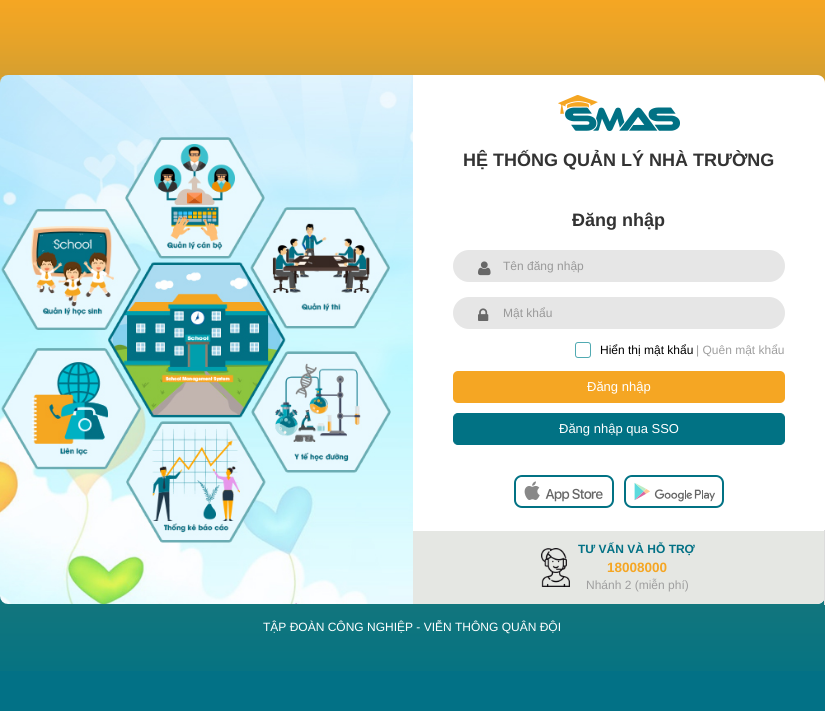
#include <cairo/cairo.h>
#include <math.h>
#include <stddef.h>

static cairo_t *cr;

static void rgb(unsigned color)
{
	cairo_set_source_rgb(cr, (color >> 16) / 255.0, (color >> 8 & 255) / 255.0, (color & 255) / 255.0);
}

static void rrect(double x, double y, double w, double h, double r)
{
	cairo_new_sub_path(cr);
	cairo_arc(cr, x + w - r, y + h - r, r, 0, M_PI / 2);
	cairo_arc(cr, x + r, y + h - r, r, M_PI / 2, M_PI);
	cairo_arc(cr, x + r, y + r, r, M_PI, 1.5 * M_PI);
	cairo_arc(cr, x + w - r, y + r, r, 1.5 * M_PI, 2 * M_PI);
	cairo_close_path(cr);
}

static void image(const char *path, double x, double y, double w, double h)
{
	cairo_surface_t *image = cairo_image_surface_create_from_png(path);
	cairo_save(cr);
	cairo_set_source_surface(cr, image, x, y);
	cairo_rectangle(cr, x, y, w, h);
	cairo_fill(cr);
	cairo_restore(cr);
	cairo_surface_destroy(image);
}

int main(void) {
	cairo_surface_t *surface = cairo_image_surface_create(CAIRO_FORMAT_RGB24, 825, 711);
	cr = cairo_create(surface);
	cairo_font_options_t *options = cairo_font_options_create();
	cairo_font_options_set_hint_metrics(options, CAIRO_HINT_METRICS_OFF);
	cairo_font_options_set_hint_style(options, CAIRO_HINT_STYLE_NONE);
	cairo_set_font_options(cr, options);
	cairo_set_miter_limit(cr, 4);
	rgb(0x027186);
	cairo_paint(cr);
	image("img/1.png", 0, 0, 825, 671);
	image("img/2.png", 0, 75, 413, 529);
	rgb(0xffffff);
	cairo_new_path(cr);
	cairo_move_to(cr, 413, 75);
	cairo_line_to(cr, 817, 75);
	cairo_curve_to(cr, 821.5, 75, 825, 78.5, 825, 83);
	cairo_line_to(cr, 825, 596);
	cairo_curve_to(cr, 825, 600.5, 821.5, 604, 817, 604);
	cairo_line_to(cr, 413, 604);
	cairo_close_path(cr);
	cairo_fill(cr);
	image("img/3.png", 558, 95, 122, 36);
	rgb(0xe6e6e6);
	rrect(453, 250, 332, 32, 16);
	cairo_fill(cr);
	image("img/4.png", 478, 261, 13, 15);
	rrect(453, 297, 332, 32, 16);
	cairo_fill(cr);
	image("img/5.png", 478, 308, 11, 13);
	rrect(575.5, 342.5, 15, 15, 2.5);
	rgb(0x51aab2);
	cairo_set_line_width(cr, 1);
	cairo_stroke(cr);
	rgb(0xf5a623);
	rrect(453, 371, 332, 32, 5);
	cairo_fill(cr);
	rgb(0x017284);
	rrect(453.5, 413.5, 331, 31, 4.5);
	cairo_fill_preserve(cr);
	cairo_stroke(cr);
	rrect(515, 476, 98, 31, 7);
	cairo_set_line_width(cr, 2);
	cairo_stroke(cr);
	image("img/6.png", 516, 477, 96, 25);
	rrect(625, 476, 98, 31, 7);
	cairo_stroke(cr);
	image("img/7.png", 626, 477, 92, 25);
	rgb(0xe5e7e3);
	cairo_new_path(cr);
	cairo_move_to(cr, 413, 531);
	cairo_line_to(cr, 825, 531);
	cairo_line_to(cr, 825, 596);
	cairo_curve_to(cr, 825, 600.5, 821.5, 604, 817, 604);
	cairo_line_to(cr, 413, 604);
	cairo_close_path(cr);
	cairo_fill(cr);
	rgb(0xdcdcdc);
	cairo_rectangle(cr, 824, 530, 1, 75);
	cairo_fill(cr);
	image("img/8.png", 541, 548, 29, 39);
	cairo_select_font_face(cr, "Liberation Sans", CAIRO_FONT_SLANT_NORMAL, CAIRO_FONT_WEIGHT_BOLD);
	cairo_set_font_size(cr, 18);
	rgb(0x333333);
	cairo_move_to(cr, 463, 166);
	cairo_show_text(cr, "HỆ THỐNG QUẢN LÝ NHÀ TRƯỜNG");
	cairo_move_to(cr, 572, 226);
	cairo_show_text(cr, "Đăng nhập");
	cairo_select_font_face(cr, "Liberation Sans", CAIRO_FONT_SLANT_NORMAL, CAIRO_FONT_WEIGHT_NORMAL);
	cairo_set_font_size(cr, 12);
	rgb(0x999999);
	cairo_move_to(cr, 503, 270);
	cairo_show_text(cr, "Tên đăng nhập");
	cairo_move_to(cr, 503, 317);
	cairo_show_text(cr, "Mật khẩu");
	rgb(0x000000);
	cairo_move_to(cr, 600, 354);
	cairo_show_text(cr, "Hiển thị mật khẩu");
	rgb(0x9f9f9f);
	cairo_move_to(cr, 696, 354);
	cairo_show_text(cr, "| Quên mật khẩu");
	cairo_set_font_size(cr, 13);
	rgb(0xffffff);
	cairo_move_to(cr, 587, 391);
	cairo_show_text(cr, "Đăng nhập");
	cairo_move_to(cr, 559, 433);
	cairo_show_text(cr, "Đăng nhập qua SSO");
	cairo_select_font_face(cr, "Liberation Sans", CAIRO_FONT_SLANT_NORMAL, CAIRO_FONT_WEIGHT_BOLD);
	cairo_set_font_size(cr, 12);
	rgb(0x027185);
	cairo_move_to(cr, 578, 553);
	cairo_show_text(cr, "TƯ VẤN VÀ HỖ TRỢ");
	cairo_set_font_size(cr, 13.5);
	rgb(0xf5a623);
	cairo_move_to(cr, 607, 572);
	cairo_show_text(cr, "18008000");
	cairo_select_font_face(cr, "Liberation Sans", CAIRO_FONT_SLANT_NORMAL, CAIRO_FONT_WEIGHT_NORMAL);
	cairo_set_font_size(cr, 12);
	rgb(0x9f9f9f);
	cairo_move_to(cr, 586, 589);
	cairo_show_text(cr, "Nhánh 2 (miễn phí)");
	rgb(0xffffff);
	cairo_move_to(cr, 263, 631);
	cairo_show_text(cr, "TẬP ĐOÀN CÔNG NGHIỆP - VIỄN THÔNG QUÂN ĐỘI");
	cairo_surface_write_to_png(surface, "page.png");
	cairo_font_options_destroy(options);
	cairo_destroy(cr);
	cairo_surface_destroy(surface);
	return 0;
}
